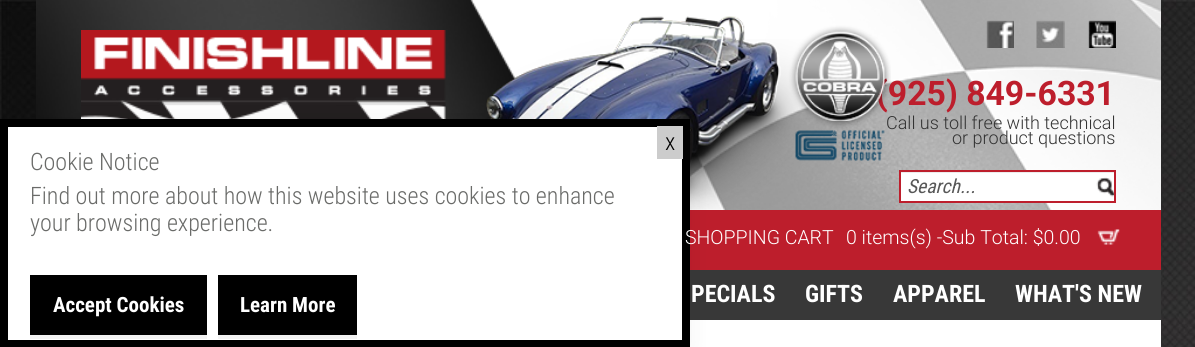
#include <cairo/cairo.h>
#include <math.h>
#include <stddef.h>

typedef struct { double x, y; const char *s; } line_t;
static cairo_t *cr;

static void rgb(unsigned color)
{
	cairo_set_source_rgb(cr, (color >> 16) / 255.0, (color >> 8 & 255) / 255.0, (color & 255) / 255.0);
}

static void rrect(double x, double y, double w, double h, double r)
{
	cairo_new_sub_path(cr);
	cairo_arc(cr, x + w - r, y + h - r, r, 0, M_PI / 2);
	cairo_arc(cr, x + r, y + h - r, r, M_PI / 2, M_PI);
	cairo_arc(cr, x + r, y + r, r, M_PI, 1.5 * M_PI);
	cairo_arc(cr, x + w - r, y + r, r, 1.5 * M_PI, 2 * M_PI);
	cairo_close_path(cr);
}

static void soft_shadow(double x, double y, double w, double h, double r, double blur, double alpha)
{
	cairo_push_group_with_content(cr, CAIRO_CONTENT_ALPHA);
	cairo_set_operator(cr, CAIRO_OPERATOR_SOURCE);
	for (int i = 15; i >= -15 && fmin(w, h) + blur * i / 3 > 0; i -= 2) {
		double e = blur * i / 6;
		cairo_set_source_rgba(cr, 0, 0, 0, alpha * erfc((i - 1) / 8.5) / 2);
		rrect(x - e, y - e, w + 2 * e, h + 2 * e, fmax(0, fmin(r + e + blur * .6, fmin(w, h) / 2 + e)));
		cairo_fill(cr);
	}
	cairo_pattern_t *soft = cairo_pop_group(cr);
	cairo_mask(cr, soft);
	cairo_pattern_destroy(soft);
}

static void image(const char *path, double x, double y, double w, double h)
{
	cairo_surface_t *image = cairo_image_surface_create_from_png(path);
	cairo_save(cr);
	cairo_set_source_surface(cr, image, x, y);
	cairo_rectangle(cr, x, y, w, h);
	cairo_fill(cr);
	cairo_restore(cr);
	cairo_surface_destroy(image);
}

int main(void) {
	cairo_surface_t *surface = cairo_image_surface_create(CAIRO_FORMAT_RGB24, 1195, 347);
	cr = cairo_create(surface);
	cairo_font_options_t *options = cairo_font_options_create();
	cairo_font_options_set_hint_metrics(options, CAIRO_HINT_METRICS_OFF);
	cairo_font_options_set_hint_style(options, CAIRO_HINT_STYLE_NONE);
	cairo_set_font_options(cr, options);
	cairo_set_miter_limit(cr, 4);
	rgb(0xffffff);
	cairo_paint(cr);
	image("img/1.png", 0, 0, 1195, 347);
	rgb(0xffffff);
	cairo_rectangle(cr, 470, 0, 691, 347);
	cairo_fill(cr);
	image("img/2.png", 690, 0, 471, 210);
	image("img/3.png", 36, 0, 481, 119);
	image("img/4.png", 81, 30, 365, 89);
	image("img/6.png", 986, 20, 28, 28);
	image("img/7.png", 1036, 20, 29, 28);
	image("img/8.png", 1088, 20, 28, 28);
	cairo_rectangle(cr, 901, 173, 213, 28);
	cairo_fill(cr);
	image("img/9.png", 1096, 177, 18, 20);
	rgb(0xececec);
	cairo_rectangle(cr, 900, 172, 215, 1);
	cairo_fill(cr);
	cairo_rectangle(cr, 900, 171, 215, 31);
	rgb(0xbd1e2c);
	cairo_stroke(cr);
	cairo_rectangle(cr, 690, 210, 471, 60);
	cairo_fill(cr);
	image("img/10.png", 1097, 229, 23, 16);
	rgb(0x383838);
	cairo_rectangle(cr, 690, 270, 471, 50);
	cairo_fill(cr);
	cairo_select_font_face(cr, "Roboto", CAIRO_FONT_SLANT_NORMAL, CAIRO_FONT_WEIGHT_BOLD);
	cairo_set_font_size(cr, 33.75);
	rgb(0xbd1e2c);
	cairo_move_to(cr, 876, 105);
	cairo_show_text(cr, "(925) 849-6331");
	cairo_select_font_face(cr, "Roboto Light", CAIRO_FONT_SLANT_NORMAL, CAIRO_FONT_WEIGHT_NORMAL);
	cairo_set_font_size(cr, 18);
	rgb(0x333333);
	cairo_move_to(cr, 886, 129);
	cairo_show_text(cr, "Call us toll free with technical");
	image("img/5.png", 486, 16, 405, 193);
	rgb(0x000000);
	soft_shadow(0, 119, 690, 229, 0, 11, 0.05);
	rgb(0xffffff);
	cairo_rectangle(cr, 4, 123, 682, 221);
	cairo_fill_preserve(cr);
	rgb(0x000000);
	cairo_set_line_width(cr, 8);
	cairo_stroke(cr);
	cairo_rectangle(cr, 218, 275, 139, 60);
	cairo_fill(cr);
	cairo_select_font_face(cr, "Roboto Condensed", CAIRO_FONT_SLANT_NORMAL, CAIRO_FONT_WEIGHT_BOLD);
	cairo_set_font_size(cr, 21);
	rgb(0xffffff);
	cairo_move_to(cr, 240, 312);
	cairo_show_text(cr, "Learn More");
	rgb(0xf2f2f2);
	cairo_rectangle(cr, 218, 335, 139, 4);
	cairo_fill(cr);
	rgb(0x000000);
	cairo_rectangle(cr, 30, 275, 177, 60);
	cairo_fill(cr);
	rgb(0xffffff);
	cairo_move_to(cr, 53, 312);
	cairo_show_text(cr, "Accept Cookies");
	rgb(0xf2f2f2);
	cairo_rectangle(cr, 30, 335, 177, 4);
	cairo_fill(cr);
	cairo_select_font_face(cr, "Roboto Condensed Light", CAIRO_FONT_SLANT_NORMAL, CAIRO_FONT_WEIGHT_NORMAL);
	cairo_set_font_size(cr, 24);
	rgb(0x6a6b69);
	{
		static const line_t items[] = {
			{30, 231, "your browsing experience."},
			{30, 204, "Find out more about how this website uses cookies to enhance"},
			{30, 170, "Cookie Notice"},
		};
		for (size_t i = 0; i < sizeof items / sizeof *items; i++) {
			cairo_move_to(cr, items[i].x, items[i].y);
			cairo_show_text(cr, items[i].s);
		}
	}
	rgb(0xcccccc);
	cairo_rectangle(cr, 657, 126, 26, 33);
	cairo_fill(cr);
	rgb(0x000000);
	cairo_move_to(cr, 665, 150);
	cairo_show_text(cr, "x");
	cairo_select_font_face(cr, "Roboto Light", CAIRO_FONT_SLANT_NORMAL, CAIRO_FONT_WEIGHT_NORMAL);
	cairo_set_font_size(cr, 18);
	rgb(0x333333);
	cairo_move_to(cr, 952, 144);
	cairo_show_text(cr, "or product questions");
	cairo_select_font_face(cr, "Roboto Condensed", CAIRO_FONT_SLANT_ITALIC, CAIRO_FONT_WEIGHT_NORMAL);
	cairo_set_font_size(cr, 19.5);
	rgb(0x575757);
	cairo_move_to(cr, 907, 193);
	cairo_show_text(cr, "Search...");
	cairo_select_font_face(cr, "Roboto Light", CAIRO_FONT_SLANT_NORMAL, CAIRO_FONT_WEIGHT_NORMAL);
	rgb(0xffffff);
	cairo_move_to(cr, 685, 244);
	cairo_show_text(cr, "SHOPPING CART");
	cairo_move_to(cr, 846, 244);
	cairo_show_text(cr, "0 items(s) -Sub Total: $0.00");
	cairo_select_font_face(cr, "Roboto Condensed", CAIRO_FONT_SLANT_NORMAL, CAIRO_FONT_WEIGHT_BOLD);
	cairo_set_font_size(cr, 24);
	{
		static const line_t items[] = {
			{691, 302, "PECIALS"},
			{805, 302, "GIFTS"},
			{893, 302, "APPAREL"},
			{1015, 302, "WHAT'S NEW"},
		};
		for (size_t i = 0; i < sizeof items / sizeof *items; i++) {
			cairo_move_to(cr, items[i].x, items[i].y);
			cairo_show_text(cr, items[i].s);
		}
	}
	cairo_surface_write_to_png(surface, "page.png");
	cairo_font_options_destroy(options);
	cairo_destroy(cr);
	cairo_surface_destroy(surface);
	return 0;
}
